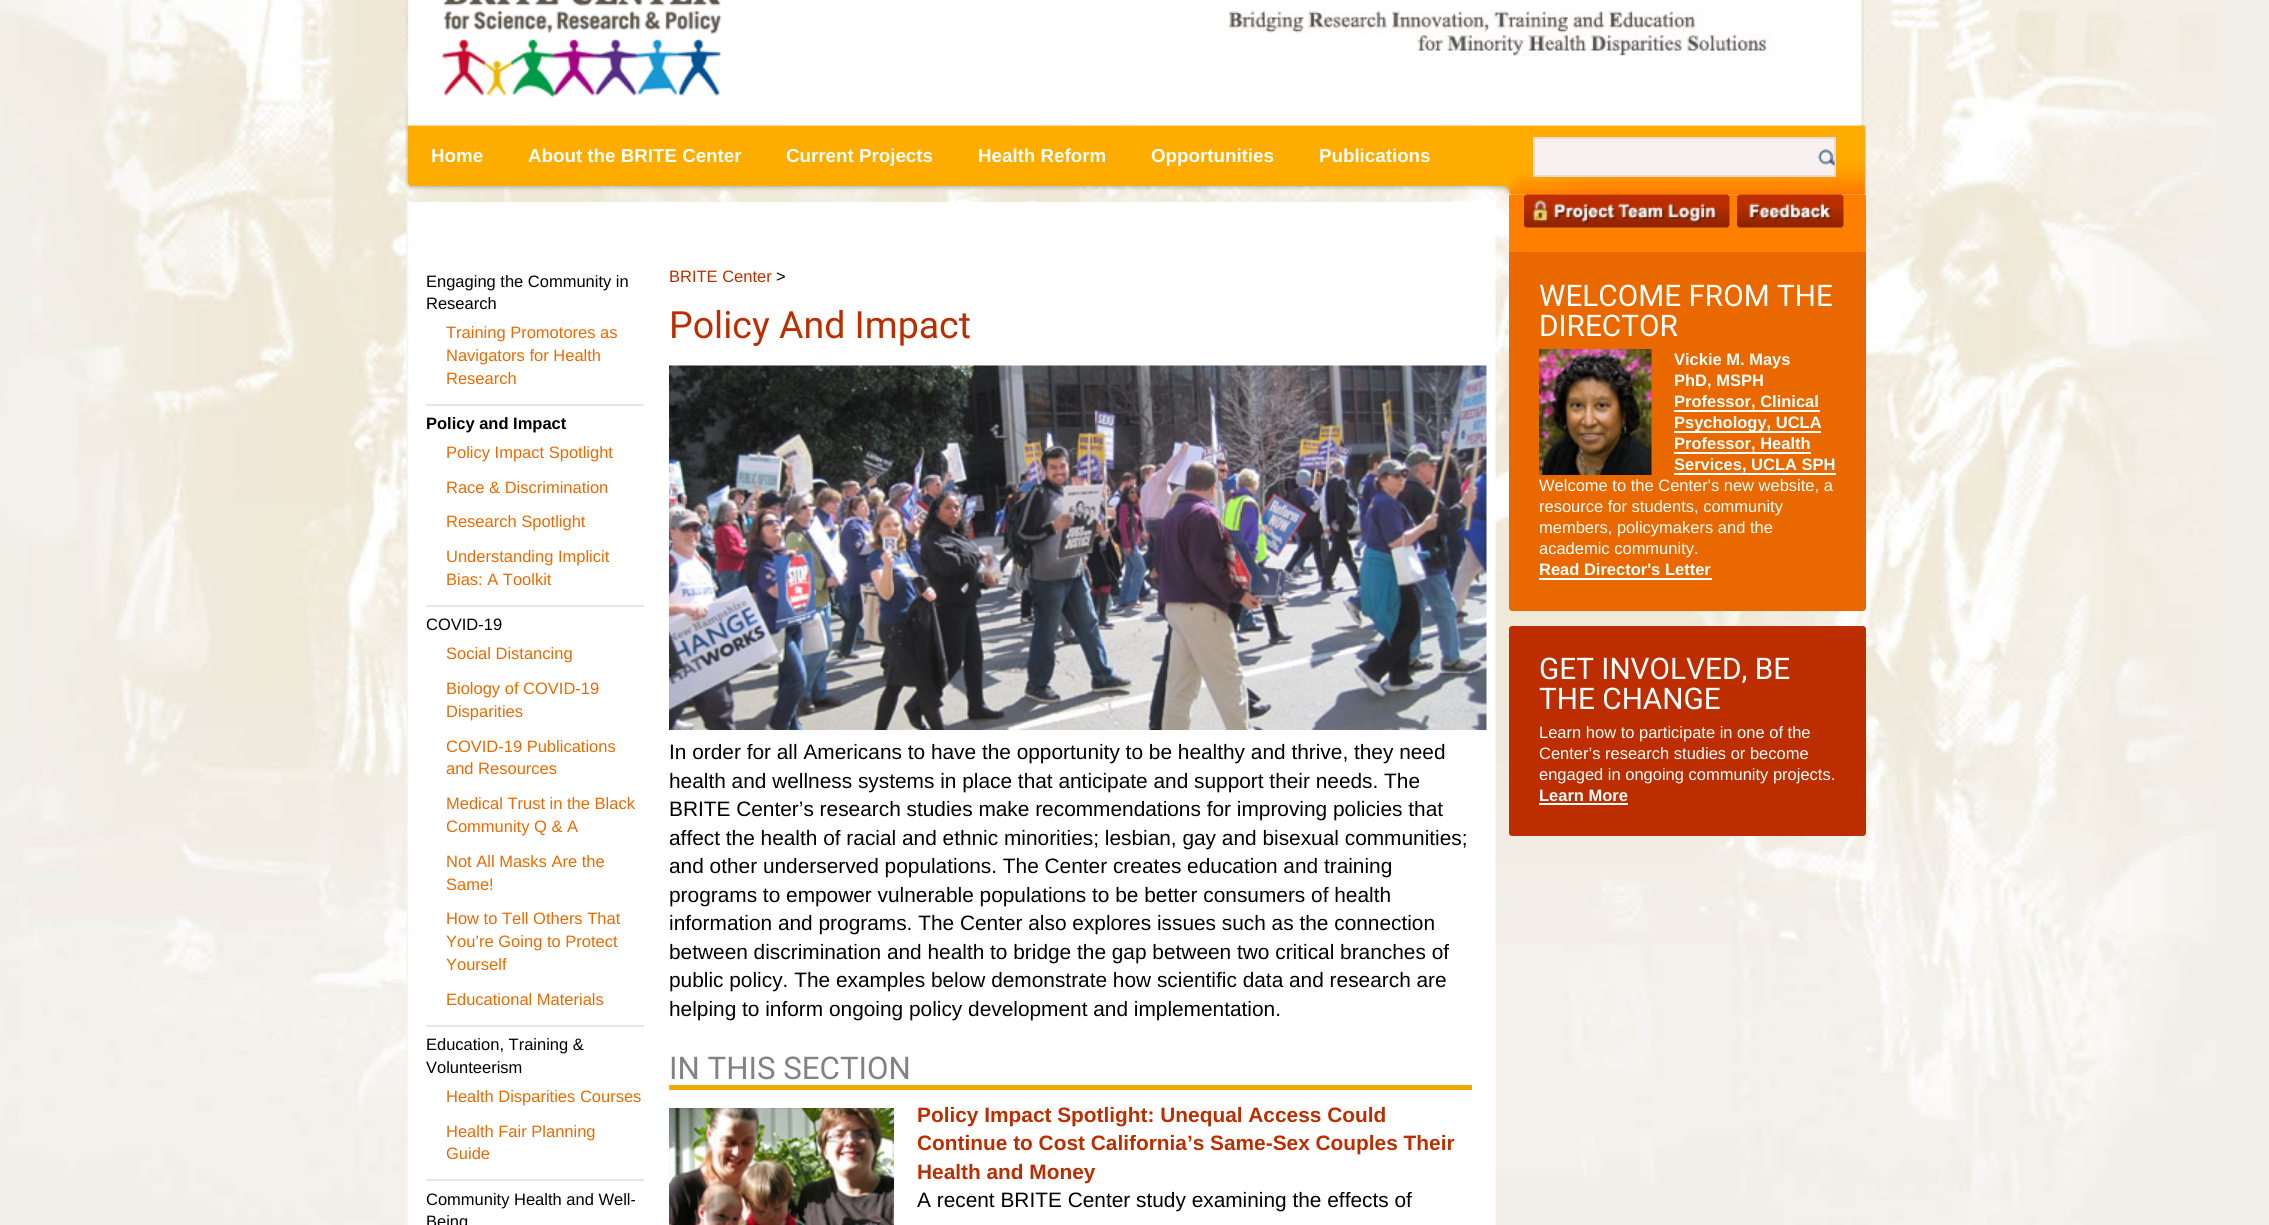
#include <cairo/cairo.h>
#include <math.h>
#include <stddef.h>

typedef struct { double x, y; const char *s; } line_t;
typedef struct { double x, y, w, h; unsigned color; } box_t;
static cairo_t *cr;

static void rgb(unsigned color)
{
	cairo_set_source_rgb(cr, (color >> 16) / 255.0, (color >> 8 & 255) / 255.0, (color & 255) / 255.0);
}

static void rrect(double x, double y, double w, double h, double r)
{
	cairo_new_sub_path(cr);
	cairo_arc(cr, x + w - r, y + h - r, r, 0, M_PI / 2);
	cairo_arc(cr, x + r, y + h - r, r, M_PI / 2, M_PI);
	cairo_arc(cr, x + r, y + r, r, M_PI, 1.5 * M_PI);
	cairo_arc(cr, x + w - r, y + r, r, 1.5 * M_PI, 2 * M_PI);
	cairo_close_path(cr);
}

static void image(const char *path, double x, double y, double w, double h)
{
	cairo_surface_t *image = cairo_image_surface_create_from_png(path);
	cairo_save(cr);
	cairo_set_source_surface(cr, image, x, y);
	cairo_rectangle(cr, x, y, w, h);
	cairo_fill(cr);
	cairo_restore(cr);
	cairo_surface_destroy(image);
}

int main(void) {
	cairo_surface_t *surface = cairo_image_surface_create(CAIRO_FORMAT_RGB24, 2269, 1225);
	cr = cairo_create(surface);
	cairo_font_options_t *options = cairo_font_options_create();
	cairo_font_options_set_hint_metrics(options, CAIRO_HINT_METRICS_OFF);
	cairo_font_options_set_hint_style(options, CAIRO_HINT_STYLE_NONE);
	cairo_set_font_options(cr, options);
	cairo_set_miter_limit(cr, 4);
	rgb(0xf2efe8);
	cairo_paint(cr);
	image("img/1.png", 0, 0, 2217, 1225);
	image("img/5.png", 405, 125, 1461, 70);
	image("img/6.png", 405, 125, 1461, 70);
	image("img/2.png", 405, 0, 1459, 126);
	image("img/3.png", 442, 0, 280, 97);
	image("img/4.png", 1224, 10, 552, 47);
	rgb(0xf7f1f1);
	cairo_rectangle(cr, 1534, 138, 301, 38);
	cairo_fill_preserve(cr);
	rgb(0xe9d9d9);
	cairo_stroke(cr);
	image("img/7.png", 1817, 149, 18, 18);
	image("img/8.png", 406, 202, 1090, 1023);
	{
		static const box_t items[] = {
			{426, 404, 218, 2, 0xe6e6e6},
			{426, 605, 218, 2, 0xe6e6e6},
			{426, 1025, 218, 2, 0xe6e6e6},
			{426, 1179, 218, 2, 0xe6e6e6},
		};
		for (size_t i = 0; i < sizeof items / sizeof *items; i++) {
			rgb(items[i].color);
			cairo_rectangle(cr, items[i].x, items[i].y, items[i].w, items[i].h);
			cairo_fill(cr);
		}
	}
	image("img/9.png", 669, 365, 818, 365);
	rgb(0xf3aa00);
	cairo_rectangle(cr, 669, 1085, 803, 5);
	cairo_fill(cr);
	image("img/10.png", 669, 1108, 225, 117);
	rgb(0xff7f00);
	cairo_rectangle(cr, 1509, 195, 357, 57);
	cairo_fill(cr);
	image("img/11.png", 1524, 194, 206, 34);
	image("img/12.png", 1737, 194, 107, 34);
	rgb(0xe96900);
	cairo_new_path(cr);
	cairo_move_to(cr, 1509, 252);
	cairo_line_to(cr, 1866, 252);
	cairo_line_to(cr, 1866, 608);
	cairo_curve_to(cr, 1866, 609.5, 1864.5, 611, 1863, 611);
	cairo_line_to(cr, 1512, 611);
	cairo_curve_to(cr, 1510.5, 611, 1509, 609.5, 1509, 608);
	cairo_close_path(cr);
	cairo_fill(cr);
	image("img/13.png", 1539, 349, 113, 126);
	{
		static const box_t items[] = {
			{1674, 410, 146, 2, 0xffffff},
			{1674, 431, 147, 2, 0xffffff},
			{1674, 452, 137, 2, 0xffffff},
			{1674, 473, 162, 2, 0xffffff},
			{1539, 578, 173, 2, 0xffffff},
		};
		for (size_t i = 0; i < sizeof items / sizeof *items; i++) {
			rgb(items[i].color);
			cairo_rectangle(cr, items[i].x, items[i].y, items[i].w, items[i].h);
			cairo_fill(cr);
		}
	}
	rgb(0xbc2e00);
	rrect(1509, 626, 357, 210, 3);
	cairo_fill(cr);
	rgb(0xffffff);
	cairo_rectangle(cr, 1539, 803, 89, 2);
	cairo_fill(cr);
	cairo_select_font_face(cr, "Liberation Sans", CAIRO_FONT_SLANT_NORMAL, CAIRO_FONT_WEIGHT_BOLD);
	cairo_set_font_size(cr, 18.75);
	{
		static const line_t items[] = {
			{431, 162, "Home"},
			{528, 162, "About the BRITE Center"},
			{786, 162, "Current Projects"},
			{978, 162, "Health Reform"},
			{1151, 162, "Opportunities"},
			{1319, 162, "Publications"},
		};
		for (size_t i = 0; i < sizeof items / sizeof *items; i++) {
			cairo_move_to(cr, items[i].x, items[i].y);
			cairo_show_text(cr, items[i].s);
		}
	}
	cairo_select_font_face(cr, "Liberation Sans", CAIRO_FONT_SLANT_NORMAL, CAIRO_FONT_WEIGHT_NORMAL);
	cairo_set_font_size(cr, 16.5);
	rgb(0x000000);
	cairo_move_to(cr, 426, 287);
	cairo_show_text(cr, "Engaging the Community in");
	cairo_move_to(cr, 426, 309);
	cairo_show_text(cr, "Research");
	rgb(0xea6900);
	{
		static const line_t items[] = {
			{446, 338, "Training Promotores as"},
			{446, 361, "Navigators for Health"},
			{446, 384, "Research"},
		};
		for (size_t i = 0; i < sizeof items / sizeof *items; i++) {
			cairo_move_to(cr, items[i].x, items[i].y);
			cairo_show_text(cr, items[i].s);
		}
	}
	cairo_select_font_face(cr, "Liberation Sans", CAIRO_FONT_SLANT_NORMAL, CAIRO_FONT_WEIGHT_BOLD);
	rgb(0x000000);
	cairo_move_to(cr, 426, 429);
	cairo_show_text(cr, "Policy and Impact");
	cairo_select_font_face(cr, "Liberation Sans", CAIRO_FONT_SLANT_NORMAL, CAIRO_FONT_WEIGHT_NORMAL);
	rgb(0xea6900);
	{
		static const line_t items[] = {
			{446, 458, "Policy Impact Spotlight"},
			{446, 493, "Race & Discrimination"},
			{446, 527, "Research Spotlight"},
			{446, 562, "Understanding Implicit"},
			{446, 585, "Bias: A Toolkit"},
		};
		for (size_t i = 0; i < sizeof items / sizeof *items; i++) {
			cairo_move_to(cr, items[i].x, items[i].y);
			cairo_show_text(cr, items[i].s);
		}
	}
	rgb(0x000000);
	cairo_move_to(cr, 426, 630);
	cairo_show_text(cr, "COVID-19");
	rgb(0xea6900);
	{
		static const line_t items[] = {
			{446, 659, "Social Distancing"},
			{446, 694, "Biology of COVID-19"},
			{446, 717, "Disparities"},
			{446, 752, "COVID-19 Publications"},
			{446, 774, "and Resources"},
			{446, 809, "Medical Trust in the Black"},
			{446, 832, "Community Q & A"},
			{446, 867, "Not All Masks Are the"},
			{446, 890, "Same!"},
			{446, 924, "How to Tell Others That"},
			{446, 947, "You’re Going to Protect"},
			{446, 970, "Yourself"},
			{446, 1005, "Educational Materials"},
		};
		for (size_t i = 0; i < sizeof items / sizeof *items; i++) {
			cairo_move_to(cr, items[i].x, items[i].y);
			cairo_show_text(cr, items[i].s);
		}
	}
	rgb(0x000000);
	cairo_move_to(cr, 426, 1050);
	cairo_show_text(cr, "Education, Training &");
	cairo_move_to(cr, 426, 1073);
	cairo_show_text(cr, "Volunteerism");
	rgb(0xea6900);
	{
		static const line_t items[] = {
			{446, 1102, "Health Disparities Courses"},
			{446, 1137, "Health Fair Planning"},
			{446, 1159, "Guide"},
		};
		for (size_t i = 0; i < sizeof items / sizeof *items; i++) {
			cairo_move_to(cr, items[i].x, items[i].y);
			cairo_show_text(cr, items[i].s);
		}
	}
	rgb(0x000000);
	cairo_move_to(cr, 426, 1205);
	cairo_show_text(cr, "Community Health and Well-");
	cairo_move_to(cr, 426, 1227);
	cairo_show_text(cr, "Being");
	rgb(0xba2e00);
	cairo_move_to(cr, 669, 282);
	cairo_show_text(cr, "BRITE Center");
	rgb(0x000000);
	cairo_move_to(cr, 776, 282);
	cairo_show_text(cr, ">");
	cairo_select_font_face(cr, "Roboto", CAIRO_FONT_SLANT_NORMAL, CAIRO_FONT_WEIGHT_NORMAL);
	cairo_set_font_size(cr, 37.5);
	rgb(0xba2e00);
	cairo_move_to(cr, 669, 338);
	cairo_show_text(cr, "Policy And Impact");
	cairo_select_font_face(cr, "Liberation Sans", CAIRO_FONT_SLANT_NORMAL, CAIRO_FONT_WEIGHT_NORMAL);
	cairo_set_font_size(cr, 20.85);
	rgb(0x000000);
	{
		static const line_t items[] = {
			{669, 759, "In order for all Americans to have the opportunity to be healthy and thrive, they need"},
			{669, 788, "health and wellness systems in place that anticipate and support their needs. The"},
			{669, 816, "BRITE Center’s research studies make recommendations for improving policies that"},
			{669, 845, "affect the health of racial and ethnic minorities; lesbian, gay and bisexual communities;"},
			{669, 873, "and other underserved populations. The Center creates education and training"},
			{669, 902, "programs to empower vulnerable populations to be better consumers of health"},
			{669, 930, "information and programs. The Center also explores issues such as the connection"},
			{669, 959, "between discrimination and health to bridge the gap between two critical branches of"},
			{669, 987, "public policy. The examples below demonstrate how scientific data and research are"},
			{669, 1016, "helping to inform ongoing policy development and implementation."},
		};
		for (size_t i = 0; i < sizeof items / sizeof *items; i++) {
			cairo_move_to(cr, items[i].x, items[i].y);
			cairo_show_text(cr, items[i].s);
		}
	}
	cairo_select_font_face(cr, "Roboto", CAIRO_FONT_SLANT_NORMAL, CAIRO_FONT_WEIGHT_NORMAL);
	cairo_set_font_size(cr, 31.25);
	rgb(0x828282);
	cairo_move_to(cr, 669, 1079);
	cairo_show_text(cr, "IN THIS SECTION");
	cairo_select_font_face(cr, "Liberation Sans", CAIRO_FONT_SLANT_NORMAL, CAIRO_FONT_WEIGHT_BOLD);
	cairo_set_font_size(cr, 20.85);
	rgb(0xba2e00);
	{
		static const line_t items[] = {
			{917, 1122, "Policy Impact Spotlight: Unequal Access Could"},
			{917, 1150, "Continue to Cost California’s Same-Sex Couples Their"},
			{917, 1179, "Health and Money"},
		};
		for (size_t i = 0; i < sizeof items / sizeof *items; i++) {
			cairo_move_to(cr, items[i].x, items[i].y);
			cairo_show_text(cr, items[i].s);
		}
	}
	cairo_select_font_face(cr, "Liberation Sans", CAIRO_FONT_SLANT_NORMAL, CAIRO_FONT_WEIGHT_NORMAL);
	rgb(0x000000);
	cairo_move_to(cr, 917, 1207);
	cairo_show_text(cr, "A recent BRITE Center study examining the effects of");
	cairo_select_font_face(cr, "Roboto", CAIRO_FONT_SLANT_NORMAL, CAIRO_FONT_WEIGHT_NORMAL);
	cairo_set_font_size(cr, 29.75);
	rgb(0xffffff);
	cairo_move_to(cr, 1539, 306);
	cairo_show_text(cr, "WELCOME FROM THE");
	cairo_move_to(cr, 1539, 336);
	cairo_show_text(cr, "DIRECTOR");
	cairo_select_font_face(cr, "Liberation Sans", CAIRO_FONT_SLANT_NORMAL, CAIRO_FONT_WEIGHT_BOLD);
	cairo_set_font_size(cr, 16.5);
	{
		static const line_t items[] = {
			{1674, 365, "Vickie M. Mays"},
			{1674, 386, "PhD, MSPH"},
			{1674, 407, "Professor, Clinical"},
			{1674, 428, "Psychology, UCLA"},
			{1674, 449, "Professor, Health"},
			{1674, 470, "Services, UCLA SPH"},
		};
		for (size_t i = 0; i < sizeof items / sizeof *items; i++) {
			cairo_move_to(cr, items[i].x, items[i].y);
			cairo_show_text(cr, items[i].s);
		}
	}
	cairo_select_font_face(cr, "Liberation Sans", CAIRO_FONT_SLANT_NORMAL, CAIRO_FONT_WEIGHT_NORMAL);
	{
		static const line_t items[] = {
			{1539, 491, "Welcome to the Center's new website, a"},
			{1539, 512, "resource for students, community"},
			{1539, 533, "members, policymakers and the"},
			{1539, 554, "academic community."},
		};
		for (size_t i = 0; i < sizeof items / sizeof *items; i++) {
			cairo_move_to(cr, items[i].x, items[i].y);
			cairo_show_text(cr, items[i].s);
		}
	}
	cairo_select_font_face(cr, "Liberation Sans", CAIRO_FONT_SLANT_NORMAL, CAIRO_FONT_WEIGHT_BOLD);
	cairo_move_to(cr, 1539, 575);
	cairo_show_text(cr, "Read Director's Letter");
	cairo_select_font_face(cr, "Roboto", CAIRO_FONT_SLANT_NORMAL, CAIRO_FONT_WEIGHT_NORMAL);
	cairo_set_font_size(cr, 29.75);
	cairo_move_to(cr, 1539, 679);
	cairo_show_text(cr, "GET INVOLVED, BE");
	cairo_move_to(cr, 1539, 709);
	cairo_show_text(cr, "THE CHANGE");
	cairo_select_font_face(cr, "Liberation Sans", CAIRO_FONT_SLANT_NORMAL, CAIRO_FONT_WEIGHT_NORMAL);
	cairo_set_font_size(cr, 16.5);
	{
		static const line_t items[] = {
			{1539, 738, "Learn how to participate in one of the"},
			{1539, 759, "Center’s research studies or become"},
			{1539, 780, "engaged in ongoing community projects."},
		};
		for (size_t i = 0; i < sizeof items / sizeof *items; i++) {
			cairo_move_to(cr, items[i].x, items[i].y);
			cairo_show_text(cr, items[i].s);
		}
	}
	cairo_select_font_face(cr, "Liberation Sans", CAIRO_FONT_SLANT_NORMAL, CAIRO_FONT_WEIGHT_BOLD);
	cairo_move_to(cr, 1539, 801);
	cairo_show_text(cr, "Learn More");
	cairo_surface_write_to_png(surface, "page.png");
	cairo_font_options_destroy(options);
	cairo_destroy(cr);
	cairo_surface_destroy(surface);
	return 0;
}
